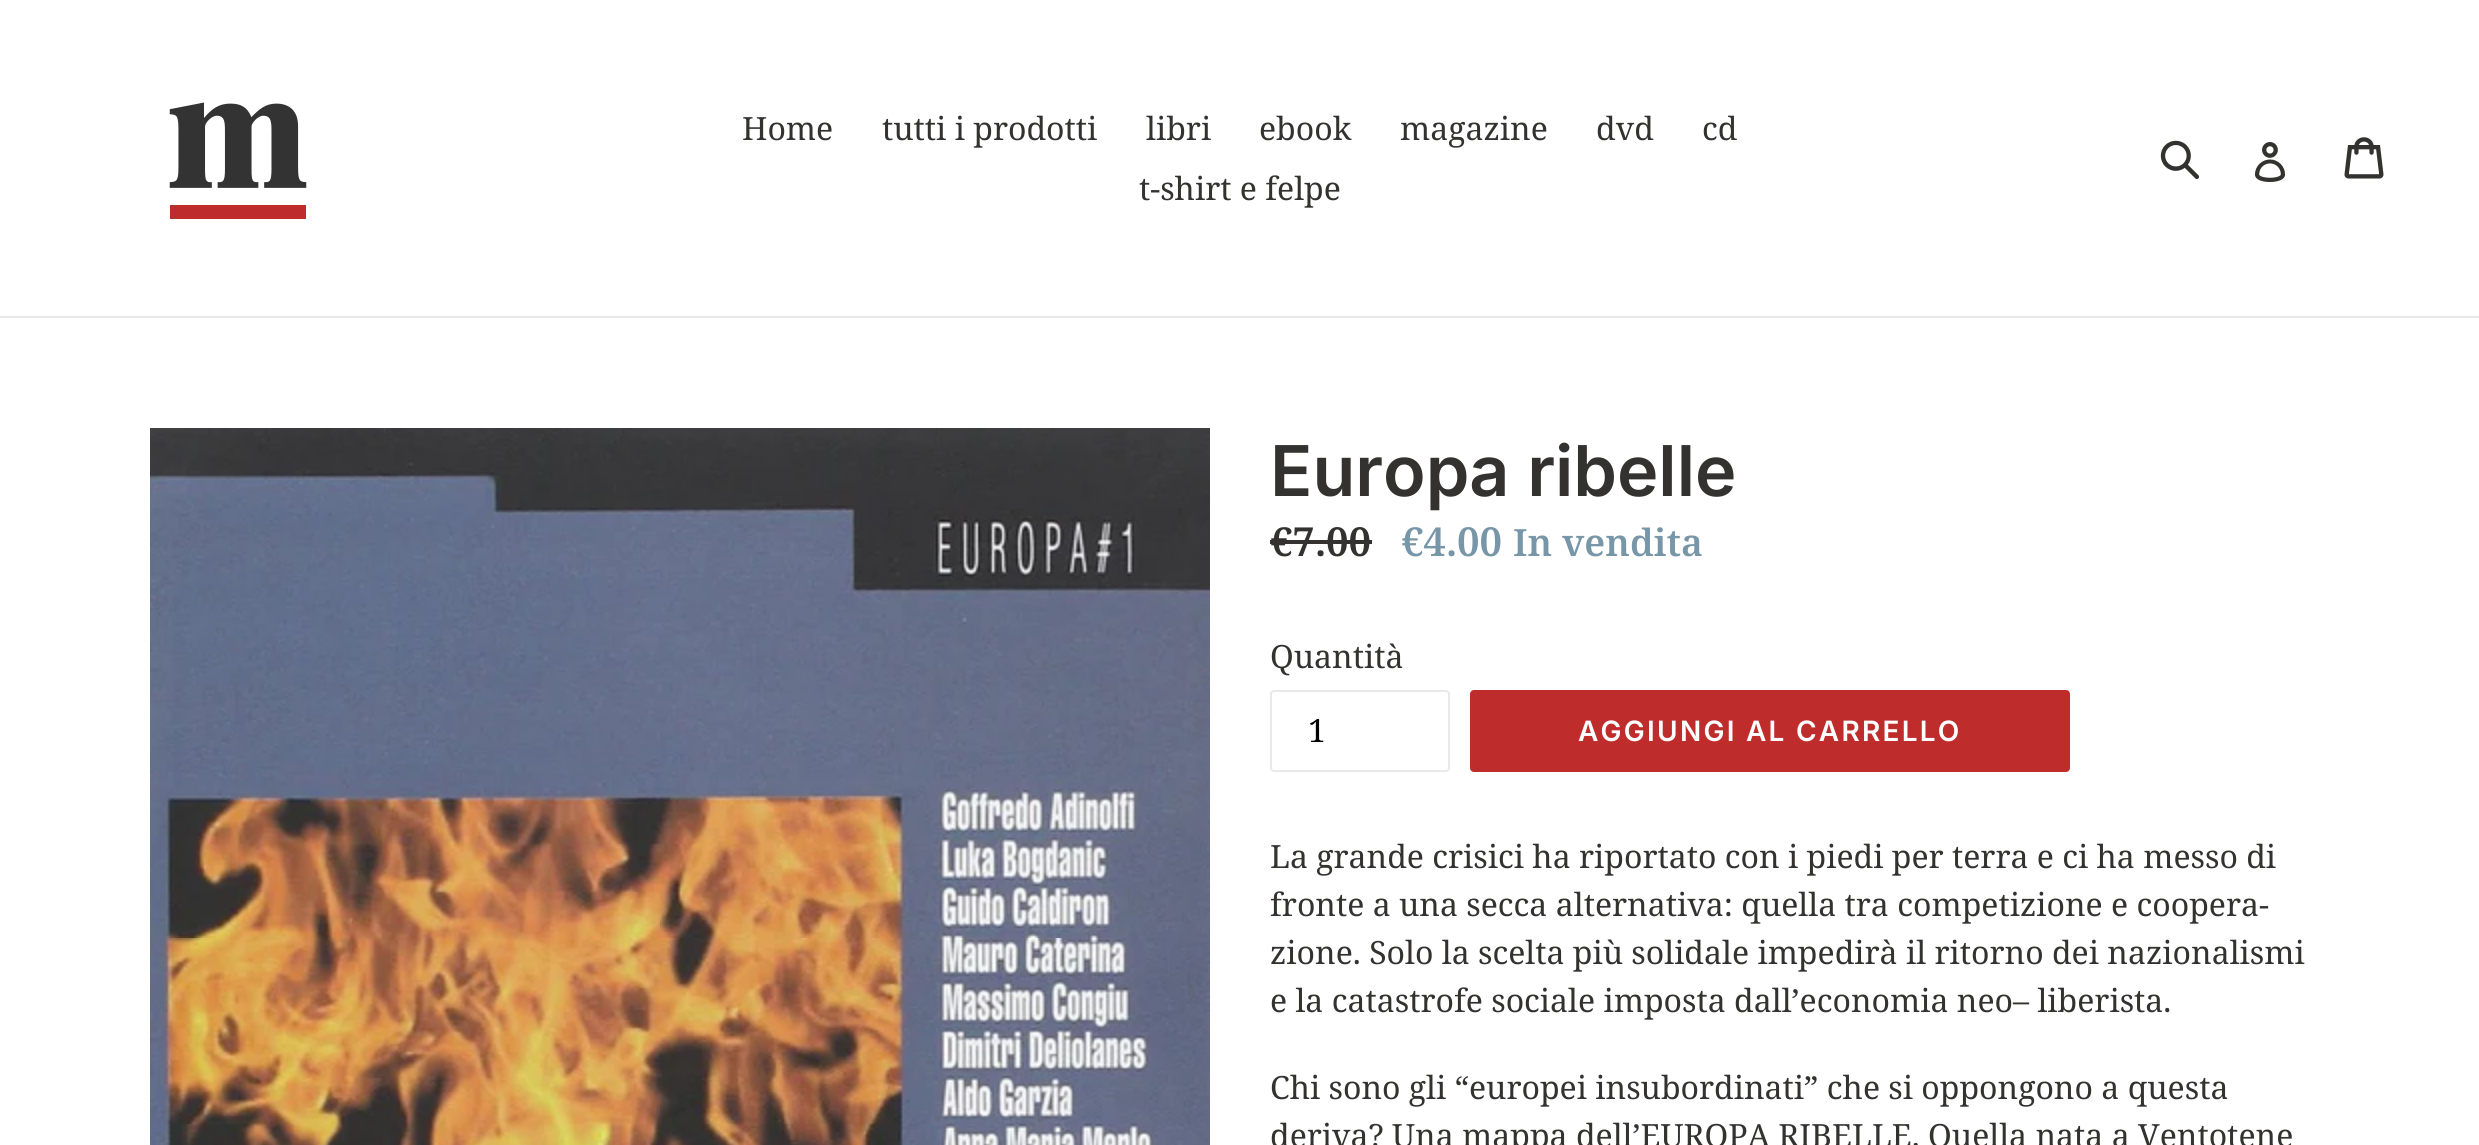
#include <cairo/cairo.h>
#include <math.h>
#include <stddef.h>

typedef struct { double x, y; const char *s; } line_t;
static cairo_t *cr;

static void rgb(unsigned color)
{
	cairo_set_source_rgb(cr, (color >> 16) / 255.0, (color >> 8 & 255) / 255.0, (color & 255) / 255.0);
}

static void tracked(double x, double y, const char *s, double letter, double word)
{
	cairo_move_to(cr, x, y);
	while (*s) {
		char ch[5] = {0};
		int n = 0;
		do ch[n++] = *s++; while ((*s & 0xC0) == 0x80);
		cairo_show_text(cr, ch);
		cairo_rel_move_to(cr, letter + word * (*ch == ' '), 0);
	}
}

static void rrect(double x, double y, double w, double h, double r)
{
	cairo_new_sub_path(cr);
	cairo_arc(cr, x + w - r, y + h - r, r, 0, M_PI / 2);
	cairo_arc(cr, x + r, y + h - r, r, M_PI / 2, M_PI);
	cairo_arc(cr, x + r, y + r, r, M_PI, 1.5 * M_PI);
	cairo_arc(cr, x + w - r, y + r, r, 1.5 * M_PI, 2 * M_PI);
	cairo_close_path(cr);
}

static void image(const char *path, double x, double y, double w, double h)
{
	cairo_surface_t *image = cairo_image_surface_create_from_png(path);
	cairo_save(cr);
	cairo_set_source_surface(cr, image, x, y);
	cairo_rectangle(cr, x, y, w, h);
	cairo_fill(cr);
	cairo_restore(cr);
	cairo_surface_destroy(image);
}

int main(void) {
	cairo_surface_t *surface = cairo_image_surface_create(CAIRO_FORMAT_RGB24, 2479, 1145);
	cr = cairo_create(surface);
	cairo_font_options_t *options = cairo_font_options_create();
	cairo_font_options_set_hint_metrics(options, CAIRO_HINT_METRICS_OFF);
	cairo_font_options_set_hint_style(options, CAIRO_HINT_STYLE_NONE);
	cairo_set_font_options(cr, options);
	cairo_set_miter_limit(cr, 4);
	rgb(0xffffff);
	cairo_paint(cr);
	rgb(0xe8e9eb);
	cairo_rectangle(cr, 0, 316, 2479, 2);
	cairo_fill(cr);
	image("img/1.png", 169, 102, 138, 117);
	image("img/2.png", 2160, 140, 40, 40);
	image("img/3.png", 2255, 142, 31, 40);
	image("img/4.png", 2344, 137, 40, 42);
	image("img/5.png", 150, 428, 1060, 717);
	rgb(0x333230);
	cairo_rectangle(cr, 1270, 540, 102, 4);
	cairo_fill(cr);
	rrect(1271, 691, 178, 80, 3);
	rgb(0xe8e9eb);
	cairo_stroke(cr);
	rgb(0xbf2c2c);
	rrect(1470, 690, 600, 82, 4);
	cairo_fill(cr);
	cairo_select_font_face(cr, "Noto Serif", CAIRO_FONT_SLANT_NORMAL, CAIRO_FONT_WEIGHT_NORMAL);
	cairo_set_font_size(cr, 32);
	rgb(0x333230);
	{
		static const line_t items[] = {
			{742, 140, "Home"},
			{882, 140, "tutti i prodotti"},
			{1146, 140, "libri"},
			{1259, 140, "ebook"},
			{1400, 140, "magazine"},
			{1596, 140, "dvd"},
			{1702, 140, "cd"},
			{1139, 200, "t-shirt e felpe"},
		};
		for (size_t i = 0; i < sizeof items / sizeof *items; i++) {
			cairo_move_to(cr, items[i].x, items[i].y);
			cairo_show_text(cr, items[i].s);
		}
	}
	cairo_select_font_face(cr, "Inter SemiBold", CAIRO_FONT_SLANT_NORMAL, CAIRO_FONT_WEIGHT_NORMAL);
	cairo_set_font_size(cr, 70);
	cairo_move_to(cr, 1270, 496);
	cairo_show_text(cr, "Europa ribelle");
	cairo_select_font_face(cr, "Noto Serif SemiBold", CAIRO_FONT_SLANT_NORMAL, CAIRO_FONT_WEIGHT_NORMAL);
	cairo_set_font_size(cr, 40);
	cairo_move_to(cr, 1270, 556);
	cairo_show_text(cr, "€7.00");
	rgb(0x7796a8);
	cairo_move_to(cr, 1401, 556);
	cairo_show_text(cr, "€4.00");
	cairo_set_font_size(cr, 37.5);
	cairo_move_to(cr, 1513, 556);
	cairo_show_text(cr, "In vendita");
	cairo_select_font_face(cr, "Noto Serif", CAIRO_FONT_SLANT_NORMAL, CAIRO_FONT_WEIGHT_NORMAL);
	cairo_set_font_size(cr, 32);
	rgb(0x333230);
	cairo_move_to(cr, 1270, 668);
	cairo_show_text(cr, "Quantità");
	rgb(0x000000);
	cairo_move_to(cr, 1308, 742);
	cairo_show_text(cr, "1");
	cairo_select_font_face(cr, "Inter SemiBold", CAIRO_FONT_SLANT_NORMAL, CAIRO_FONT_WEIGHT_NORMAL);
	cairo_set_font_size(cr, 28);
	rgb(0xffffff);
	tracked(1578, 741, "AGGIUNGI AL CARRELLO", 2.25, 0);
	cairo_select_font_face(cr, "Noto Serif", CAIRO_FONT_SLANT_NORMAL, CAIRO_FONT_WEIGHT_NORMAL);
	cairo_set_font_size(cr, 32);
	rgb(0x333230);
	{
		static const line_t items[] = {
			{1270, 868, "La grande crisici ha riportato con i piedi per terra e ci ha messo di"},
			{1270, 916, "fronte a una secca alternativa: quella tra competizione e coopera-"},
			{1270, 964, "zione. Solo la scelta più solidale impedirà il ritorno dei nazionalismi"},
			{1270, 1012, "e la catastrofe sociale imposta dall’economia neo– liberista."},
			{1270, 1099, "Chi sono gli “europei insubordinati” che si oppongono a questa"},
			{1270, 1147, "deriva? Una mappa dell’EUROPA RIBELLE. Quella nata a Ventotene"},
		};
		for (size_t i = 0; i < sizeof items / sizeof *items; i++) {
			cairo_move_to(cr, items[i].x, items[i].y);
			cairo_show_text(cr, items[i].s);
		}
	}
	cairo_surface_write_to_png(surface, "page.png");
	cairo_font_options_destroy(options);
	cairo_destroy(cr);
	cairo_surface_destroy(surface);
	return 0;
}
